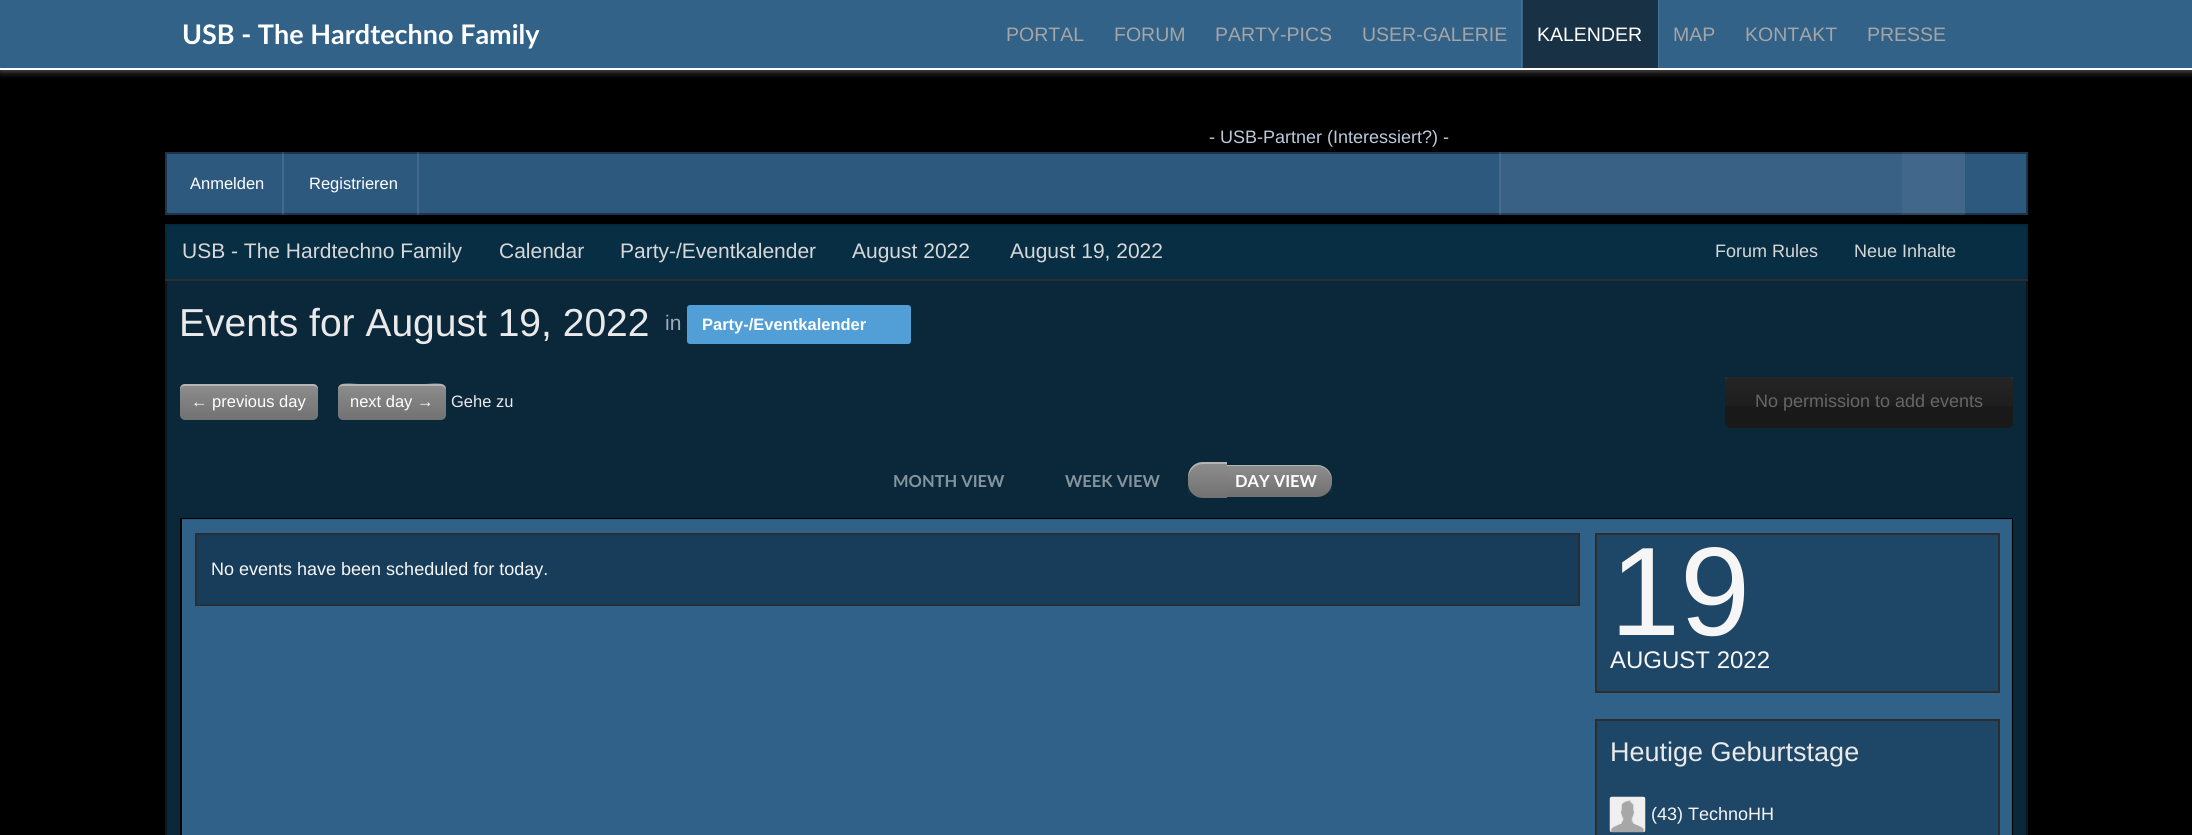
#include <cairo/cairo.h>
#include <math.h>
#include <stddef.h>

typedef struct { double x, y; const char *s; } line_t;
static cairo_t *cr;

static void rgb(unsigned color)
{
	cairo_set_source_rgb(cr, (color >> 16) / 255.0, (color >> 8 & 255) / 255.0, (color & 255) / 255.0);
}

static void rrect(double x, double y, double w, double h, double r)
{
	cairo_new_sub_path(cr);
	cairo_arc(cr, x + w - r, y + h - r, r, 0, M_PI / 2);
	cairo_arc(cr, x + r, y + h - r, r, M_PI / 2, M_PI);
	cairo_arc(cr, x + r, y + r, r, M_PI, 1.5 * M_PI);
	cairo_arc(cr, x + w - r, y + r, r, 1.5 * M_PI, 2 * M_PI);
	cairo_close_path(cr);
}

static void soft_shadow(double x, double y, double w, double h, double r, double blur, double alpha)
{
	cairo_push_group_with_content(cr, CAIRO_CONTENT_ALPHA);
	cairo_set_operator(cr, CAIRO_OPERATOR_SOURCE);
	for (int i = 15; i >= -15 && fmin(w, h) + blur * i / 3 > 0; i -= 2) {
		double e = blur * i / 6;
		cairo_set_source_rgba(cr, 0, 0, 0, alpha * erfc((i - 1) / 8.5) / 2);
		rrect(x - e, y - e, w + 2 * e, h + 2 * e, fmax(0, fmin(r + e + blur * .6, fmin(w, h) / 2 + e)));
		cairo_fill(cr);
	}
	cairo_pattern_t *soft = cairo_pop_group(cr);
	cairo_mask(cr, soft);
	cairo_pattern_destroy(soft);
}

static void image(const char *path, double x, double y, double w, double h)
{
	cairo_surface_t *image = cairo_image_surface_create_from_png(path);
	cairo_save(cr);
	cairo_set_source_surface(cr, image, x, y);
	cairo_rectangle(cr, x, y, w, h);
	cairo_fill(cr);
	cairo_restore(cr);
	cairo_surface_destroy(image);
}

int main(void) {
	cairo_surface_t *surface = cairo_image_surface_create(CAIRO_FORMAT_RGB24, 2192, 835);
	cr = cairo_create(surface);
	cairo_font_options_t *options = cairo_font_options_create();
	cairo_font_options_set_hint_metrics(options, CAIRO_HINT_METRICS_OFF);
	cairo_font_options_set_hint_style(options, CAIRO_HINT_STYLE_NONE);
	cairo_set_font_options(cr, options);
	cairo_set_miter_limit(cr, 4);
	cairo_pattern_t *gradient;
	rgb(0x000000);
	cairo_paint(cr);
	rgb(0xffffff);
	soft_shadow(0, 2, 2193, 69, 0, 4, 0.4);
	rgb(0x326288);
	cairo_rectangle(cr, 0, 0, 2192, 68);
	cairo_fill(cr);
	rgb(0xffffff);
	cairo_rectangle(cr, 0, 68, 2192, 2);
	cairo_fill(cr);
	rgb(0x477294);
	cairo_new_path(cr);
	cairo_move_to(cr, 1521, 0);
	cairo_line_to(cr, 1521, 68);
	cairo_line_to(cr, 1656, 68);
	cairo_line_to(cr, 1522, 68);
	cairo_line_to(cr, 1522, 0);
	cairo_close_path(cr);
	cairo_fill(cr);
	cairo_new_path(cr);
	cairo_move_to(cr, 1524, 68);
	cairo_line_to(cr, 1659, 68);
	cairo_line_to(cr, 1659, 0);
	cairo_line_to(cr, 1658, 0);
	cairo_line_to(cr, 1658, 68);
	cairo_close_path(cr);
	cairo_fill(cr);
	rgb(0x193144);
	cairo_rectangle(cr, 1523, 0, 135, 68);
	cairo_fill(cr);
	rgb(0x2e597f);
	cairo_rectangle(cr, 166, 153, 1861, 61);
	cairo_fill_preserve(cr);
	rgb(0x1c354c);
	cairo_stroke(cr);
	cairo_set_source_rgba(cr, 1, 1, 1, 0.1);
	cairo_rectangle(cr, 282, 152, 2, 63);
	cairo_fill(cr);
	cairo_rectangle(cr, 417, 152, 2, 63);
	cairo_fill(cr);
	cairo_rectangle(cr, 1499, 152, 2, 63);
	cairo_fill(cr);
	cairo_set_source_rgba(cr, 1, 1, 1, 0.05);
	cairo_rectangle(cr, 1500, 152, 465, 63);
	cairo_fill(cr);
	cairo_rectangle(cr, 1902, 152, 63, 63);
	cairo_fill(cr);
	rgb(0x0b283a);
	cairo_rectangle(cr, 166, 225, 1861, 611);
	cairo_fill_preserve(cr);
	rgb(0x071823);
	cairo_stroke(cr);
	cairo_set_source_rgba(cr, 0.031, 0.196, 0.298, 0.6);
	cairo_rectangle(cr, 165, 224, 1863, 55);
	cairo_fill(cr);
	rgb(0x2d2d2d);
	cairo_rectangle(cr, 165, 279, 1863, 2);
	cairo_fill(cr);
	rgb(0x519fd6);
	rrect(687, 305, 224, 39, 3);
	cairo_fill(cr);
	rgb(0x727272);
	rrect(180, 384, 138, 36, 5);
	cairo_fill(cr);
	gradient = cairo_pattern_create_linear(249, 383, 249, 419);
	cairo_pattern_add_color_stop_rgba(gradient, 0, 1, 1, 1, 0.2);
	cairo_pattern_add_color_stop_rgba(gradient, 1, 1, 1, 1, 0);
	cairo_set_source(cr, gradient);
	cairo_pattern_destroy(gradient);
	cairo_new_path(cr);
	cairo_move_to(cr, 185, 384);
	cairo_line_to(cr, 313, 384);
	cairo_curve_to(cr, 316, 384, 318, 386, 318, 389);
	cairo_line_to(cr, 318, 419);
	cairo_line_to(cr, 180, 419);
	cairo_line_to(cr, 180, 389);
	cairo_curve_to(cr, 180, 386, 182, 384, 185, 384);
	cairo_close_path(cr);
	cairo_fill(cr);
	cairo_set_source_rgba(cr, 1, 1, 1, 0.35);
	cairo_new_path(cr);
	cairo_move_to(cr, 184, 386);
	cairo_line_to(cr, 314, 386);
	cairo_curve_to(cr, 316, 386, 318, 388, 318, 390);
	cairo_line_to(cr, 318, 389);
	cairo_curve_to(cr, 318, 386, 316, 384, 313, 384);
	cairo_line_to(cr, 185, 384);
	cairo_curve_to(cr, 182, 384, 180, 386, 180, 389);
	cairo_line_to(cr, 180, 390);
	cairo_curve_to(cr, 180, 388, 182, 386, 184, 386);
	cairo_close_path(cr);
	cairo_fill(cr);
	rgb(0x727272);
	rrect(338, 384, 108, 36, 5);
	cairo_fill(cr);
	gradient = cairo_pattern_create_linear(392, 383, 392, 419);
	cairo_pattern_add_color_stop_rgba(gradient, 0, 1, 1, 1, 0.2);
	cairo_pattern_add_color_stop_rgba(gradient, 1, 1, 1, 1, 0);
	cairo_set_source(cr, gradient);
	cairo_pattern_destroy(gradient);
	cairo_new_path(cr);
	cairo_move_to(cr, 343, 384);
	cairo_line_to(cr, 441, 384);
	cairo_curve_to(cr, 444, 384, 446, 386, 446, 389);
	cairo_line_to(cr, 446, 419);
	cairo_line_to(cr, 338, 419);
	cairo_line_to(cr, 338, 389);
	cairo_curve_to(cr, 338, 386, 340, 384, 343, 384);
	cairo_close_path(cr);
	cairo_fill(cr);
	cairo_set_source_rgba(cr, 1, 1, 1, 0.35);
	cairo_new_path(cr);
	cairo_move_to(cr, 342, 386);
	cairo_line_to(cr, 441, 386);
	cairo_curve_to(cr, 443, 386, 446, 388, 446, 390);
	cairo_curve_to(cr, 446, 380, 430, 384, 425, 384);
	cairo_line_to(cr, 359, 384);
	cairo_curve_to(cr, 354, 384, 338, 380, 338, 390);
	cairo_curve_to(cr, 338, 388, 340, 386, 342, 386);
	cairo_close_path(cr);
	cairo_fill(cr);
	rgb(0x191919);
	rrect(1725, 377, 288, 51, 5);
	cairo_fill(cr);
	gradient = cairo_pattern_create_linear(1869, 377, 1869, 428);
	cairo_pattern_add_color_stop_rgba(gradient, 0, 1, 1, 1, 0.05);
	cairo_pattern_add_color_stop_rgba(gradient, 1, 1, 1, 1, 0);
	cairo_set_source(cr, gradient);
	cairo_pattern_destroy(gradient);
	cairo_rectangle(cr, 1725, 377, 288, 29);
	cairo_fill(cr);
	rgb(0x727272);
	cairo_new_path(cr);
	cairo_move_to(cr, 1203, 462);
	cairo_line_to(cr, 1227, 462);
	cairo_line_to(cr, 1227, 498);
	cairo_line_to(cr, 1203, 498);
	cairo_curve_to(cr, 1194.5, 498, 1188, 491.5, 1188, 483);
	cairo_line_to(cr, 1188, 477);
	cairo_curve_to(cr, 1188, 468.5, 1194.5, 462, 1203, 462);
	cairo_close_path(cr);
	cairo_fill(cr);
	gradient = cairo_pattern_create_linear(1208, 461, 1208, 497);
	cairo_pattern_add_color_stop_rgba(gradient, 0, 1, 1, 1, 0.2);
	cairo_pattern_add_color_stop_rgba(gradient, 1, 1, 1, 1, 0);
	cairo_set_source(cr, gradient);
	cairo_pattern_destroy(gradient);
	cairo_new_path(cr);
	cairo_move_to(cr, 1203, 462);
	cairo_line_to(cr, 1227, 462);
	cairo_line_to(cr, 1227, 497);
	cairo_line_to(cr, 1188, 497);
	cairo_line_to(cr, 1188, 477);
	cairo_curve_to(cr, 1188, 468.5, 1194.5, 462, 1203, 462);
	cairo_close_path(cr);
	cairo_fill(cr);
	cairo_set_source_rgba(cr, 1, 1, 1, 0.35);
	cairo_new_path(cr);
	cairo_move_to(cr, 1203, 464);
	cairo_line_to(cr, 1227, 464);
	cairo_line_to(cr, 1227, 462);
	cairo_line_to(cr, 1203, 462);
	cairo_curve_to(cr, 1195, 462, 1188, 468.5, 1188, 477);
	cairo_curve_to(cr, 1189.5, 470, 1195, 464, 1203, 464);
	cairo_close_path(cr);
	cairo_fill(cr);
	rgb(0x727272);
	cairo_new_path(cr);
	cairo_move_to(cr, 1227, 465);
	cairo_line_to(cr, 1317, 465);
	cairo_curve_to(cr, 1325.5, 465, 1332, 471.5, 1332, 480);
	cairo_line_to(cr, 1332, 482);
	cairo_curve_to(cr, 1332, 490.5, 1325.5, 497, 1317, 497);
	cairo_line_to(cr, 1227, 497);
	cairo_close_path(cr);
	cairo_fill(cr);
	gradient = cairo_pattern_create_linear(1280, 464, 1280, 495);
	cairo_pattern_add_color_stop_rgba(gradient, 0, 1, 1, 1, 0.2);
	cairo_pattern_add_color_stop_rgba(gradient, 1, 1, 1, 1, 0);
	cairo_set_source(cr, gradient);
	cairo_pattern_destroy(gradient);
	cairo_new_path(cr);
	cairo_move_to(cr, 1227, 465);
	cairo_line_to(cr, 1317, 465);
	cairo_curve_to(cr, 1325.5, 465, 1332, 471.5, 1332, 480);
	cairo_line_to(cr, 1332, 495);
	cairo_line_to(cr, 1227, 495);
	cairo_close_path(cr);
	cairo_fill(cr);
	cairo_set_source_rgba(cr, 1, 1, 1, 0.35);
	cairo_new_path(cr);
	cairo_move_to(cr, 1227, 466);
	cairo_line_to(cr, 1317, 466);
	cairo_curve_to(cr, 1325, 466, 1332, 473, 1332, 482);
	cairo_line_to(cr, 1332, 480);
	cairo_curve_to(cr, 1332, 472, 1325, 465, 1317, 465);
	cairo_line_to(cr, 1227, 465);
	cairo_close_path(cr);
	cairo_fill(cr);
	rgb(0x13354e);
	cairo_rectangle(cr, 181, 519, 1831, 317);
	cairo_fill_preserve(cr);
	rgb(0x000000);
	cairo_stroke(cr);
	cairo_set_source_rgba(cr, 0.216, 0.427, 0.592, 0.8);
	cairo_rectangle(cr, 182, 519, 1830, 316);
	cairo_fill(cr);
	rgb(0x1e4666);
	cairo_rectangle(cr, 196, 534, 1383, 71);
	cairo_fill_preserve(cr);
	rgb(0x2d2d2d);
	cairo_stroke(cr);
	cairo_set_source_rgba(cr, 0.086, 0.227, 0.341, 0.7);
	cairo_rectangle(cr, 197, 534, 1381, 71);
	cairo_fill(cr);
	rgb(0x1e4666);
	cairo_rectangle(cr, 1596, 534, 403, 158);
	cairo_fill_preserve(cr);
	rgb(0x2d2d2d);
	cairo_stroke(cr);
	rgb(0x1e4666);
	cairo_rectangle(cr, 1596, 720, 403, 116);
	cairo_fill_preserve(cr);
	rgb(0x2d2d2d);
	cairo_stroke(cr);
	image("img/1.png", 1609, 796, 37, 37);
	cairo_select_font_face(cr, "Lato", CAIRO_FONT_SLANT_NORMAL, CAIRO_FONT_WEIGHT_BOLD);
	cairo_set_font_size(cr, 27);
	rgb(0xffffff);
	cairo_move_to(cr, 182, 44);
	cairo_show_text(cr, "USB - The Hardtechno Family");
	cairo_select_font_face(cr, "Liberation Sans", CAIRO_FONT_SLANT_NORMAL, CAIRO_FONT_WEIGHT_NORMAL);
	cairo_set_font_size(cr, 19.5);
	rgb(0xa5a5a5);
	{
		static const line_t items[] = {
			{1006, 41, "PORTAL"},
			{1114, 41, "FORUM"},
			{1215, 41, "PARTY-PICS"},
			{1362, 41, "USER-GALERIE"},
		};
		for (size_t i = 0; i < sizeof items / sizeof *items; i++) {
			cairo_move_to(cr, items[i].x, items[i].y);
			cairo_show_text(cr, items[i].s);
		}
	}
	rgb(0xffffff);
	cairo_move_to(cr, 1537, 41);
	cairo_show_text(cr, "KALENDER");
	rgb(0xa5a5a5);
	{
		static const line_t items[] = {
			{1673, 41, "MAP"},
			{1745, 41, "KONTAKT"},
			{1867, 41, "PRESSE"},
		};
		for (size_t i = 0; i < sizeof items / sizeof *items; i++) {
			cairo_move_to(cr, items[i].x, items[i].y);
			cairo_show_text(cr, items[i].s);
		}
	}
	cairo_set_font_size(cr, 18);
	rgb(0xbccbdc);
	cairo_move_to(cr, 1209, 143);
	cairo_show_text(cr, "- USB-Partner (Interessiert?) -");
	cairo_set_font_size(cr, 16.5);
	rgb(0xffffff);
	cairo_move_to(cr, 190, 189);
	cairo_show_text(cr, "Anmelden");
	cairo_move_to(cr, 309, 189);
	cairo_show_text(cr, "Registrieren");
	cairo_set_font_size(cr, 21);
	rgb(0xd7d7d7);
	{
		static const line_t items[] = {
			{182, 258, "USB - The Hardtechno Family"},
			{499, 258, "Calendar"},
			{620, 258, "Party-/Eventkalender"},
			{852, 258, "August 2022"},
			{1010, 258, "August 19, 2022"},
		};
		for (size_t i = 0; i < sizeof items / sizeof *items; i++) {
			cairo_move_to(cr, items[i].x, items[i].y);
			cairo_show_text(cr, items[i].s);
		}
	}
	cairo_set_font_size(cr, 18);
	cairo_move_to(cr, 1715, 257);
	cairo_show_text(cr, "Forum Rules");
	cairo_move_to(cr, 1854, 257);
	cairo_show_text(cr, "Neue Inhalte");
	cairo_set_font_size(cr, 39);
	rgb(0xeaeaea);
	cairo_move_to(cr, 179, 336);
	cairo_show_text(cr, "Events for August 19, 2022");
	cairo_set_font_size(cr, 21);
	rgb(0x9dabb7);
	cairo_move_to(cr, 665, 330);
	cairo_show_text(cr, "in");
	cairo_select_font_face(cr, "Liberation Sans", CAIRO_FONT_SLANT_NORMAL, CAIRO_FONT_WEIGHT_BOLD);
	cairo_set_font_size(cr, 16.5);
	rgb(0xffffff);
	cairo_move_to(cr, 702, 330);
	cairo_show_text(cr, "Party-/Eventkalender");
	cairo_select_font_face(cr, "Liberation Sans", CAIRO_FONT_SLANT_NORMAL, CAIRO_FONT_WEIGHT_NORMAL);
	cairo_move_to(cr, 191, 407);
	cairo_show_text(cr, "← previous day");
	cairo_move_to(cr, 350, 407);
	cairo_show_text(cr, "next day →");
	rgb(0xeaeaea);
	cairo_move_to(cr, 451, 407);
	cairo_show_text(cr, "Gehe zu");
	cairo_set_font_size(cr, 18);
	rgb(0x666666);
	cairo_move_to(cr, 1755, 407);
	cairo_show_text(cr, "No permission to add events");
	cairo_select_font_face(cr, "Lato", CAIRO_FONT_SLANT_NORMAL, CAIRO_FONT_WEIGHT_BOLD);
	cairo_set_font_size(cr, 16.5);
	rgb(0x85949d);
	cairo_move_to(cr, 893, 487);
	cairo_show_text(cr, "MONTH VIEW");
	cairo_move_to(cr, 1065, 487);
	cairo_show_text(cr, "WEEK VIEW");
	rgb(0xffffff);
	cairo_move_to(cr, 1235, 487);
	cairo_show_text(cr, "DAY VIEW");
	cairo_select_font_face(cr, "Liberation Sans", CAIRO_FONT_SLANT_NORMAL, CAIRO_FONT_WEIGHT_NORMAL);
	cairo_set_font_size(cr, 18);
	rgb(0xf6f6f6);
	cairo_move_to(cr, 211, 575);
	cairo_show_text(cr, "No events have been scheduled for today.");
	cairo_set_font_size(cr, 126);
	cairo_move_to(cr, 1610, 635);
	cairo_show_text(cr, "19");
	cairo_set_font_size(cr, 24);
	cairo_move_to(cr, 1610, 668);
	cairo_show_text(cr, "AUGUST 2022");
	cairo_set_font_size(cr, 27);
	rgb(0xeaeaea);
	cairo_move_to(cr, 1610, 761);
	cairo_show_text(cr, "Heutige Geburtstage");
	cairo_set_font_size(cr, 18);
	rgb(0xf6f6f6);
	cairo_move_to(cr, 1651, 820);
	cairo_show_text(cr, "(43) TechnoHH");
	cairo_surface_write_to_png(surface, "page.png");
	cairo_font_options_destroy(options);
	cairo_destroy(cr);
	cairo_surface_destroy(surface);
	return 0;
}
